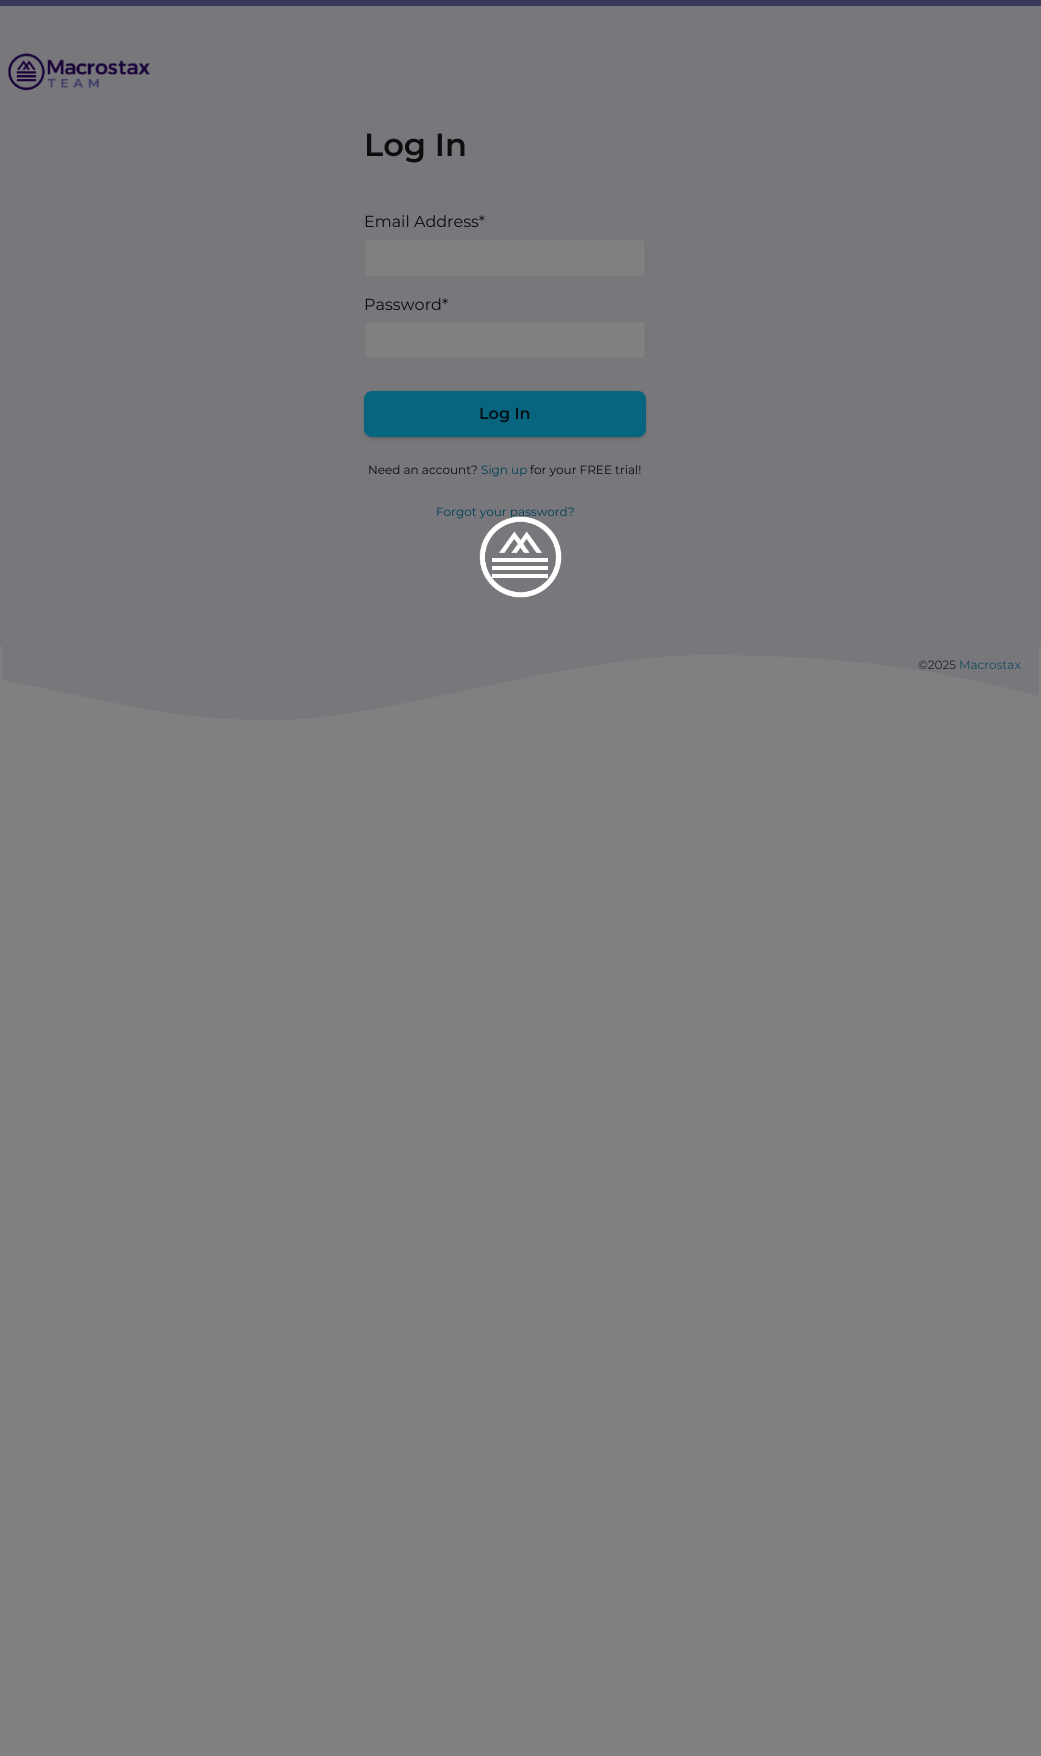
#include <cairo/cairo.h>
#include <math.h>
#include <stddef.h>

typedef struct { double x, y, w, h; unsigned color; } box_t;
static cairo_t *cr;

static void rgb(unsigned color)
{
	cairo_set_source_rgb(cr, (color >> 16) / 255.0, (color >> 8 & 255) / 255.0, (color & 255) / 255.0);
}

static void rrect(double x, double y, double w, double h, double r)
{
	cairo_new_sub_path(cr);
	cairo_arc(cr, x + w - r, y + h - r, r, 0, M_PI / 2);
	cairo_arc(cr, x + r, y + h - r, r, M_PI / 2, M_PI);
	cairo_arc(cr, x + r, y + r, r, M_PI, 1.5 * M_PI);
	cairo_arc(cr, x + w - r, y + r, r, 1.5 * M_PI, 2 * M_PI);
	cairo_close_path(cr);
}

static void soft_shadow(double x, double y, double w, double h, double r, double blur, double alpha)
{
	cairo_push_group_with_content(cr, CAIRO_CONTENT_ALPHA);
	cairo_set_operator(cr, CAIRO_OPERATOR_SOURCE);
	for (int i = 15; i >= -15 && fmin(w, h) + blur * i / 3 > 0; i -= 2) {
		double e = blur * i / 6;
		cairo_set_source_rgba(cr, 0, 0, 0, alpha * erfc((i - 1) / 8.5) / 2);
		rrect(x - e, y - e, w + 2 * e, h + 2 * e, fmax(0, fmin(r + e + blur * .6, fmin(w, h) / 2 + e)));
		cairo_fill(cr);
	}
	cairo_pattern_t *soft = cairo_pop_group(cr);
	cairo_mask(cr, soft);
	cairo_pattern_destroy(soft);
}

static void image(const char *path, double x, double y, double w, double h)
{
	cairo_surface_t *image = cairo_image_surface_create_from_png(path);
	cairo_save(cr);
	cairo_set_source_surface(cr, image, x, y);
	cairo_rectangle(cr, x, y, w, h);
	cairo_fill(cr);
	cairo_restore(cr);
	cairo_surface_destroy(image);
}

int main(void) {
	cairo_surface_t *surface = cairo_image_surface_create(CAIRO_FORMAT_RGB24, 1041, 1756);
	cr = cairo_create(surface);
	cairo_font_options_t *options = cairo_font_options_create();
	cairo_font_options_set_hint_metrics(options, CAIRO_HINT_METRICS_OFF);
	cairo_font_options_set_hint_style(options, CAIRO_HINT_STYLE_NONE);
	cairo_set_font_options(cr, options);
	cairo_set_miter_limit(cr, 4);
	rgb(0x808080);
	cairo_paint(cr);
	rgb(0x39395b);
	cairo_rectangle(cr, 0, 0, 1041, 6);
	cairo_fill(cr);
	rgb(0x77777c);
	cairo_new_path(cr);
	cairo_move_to(cr, 2, 680);
	cairo_curve_to(cr, 131, 705, 169, 720, 276, 720);
	cairo_curve_to(cr, 383, 720, 568, 655, 705, 655);
	cairo_curve_to(cr, 841, 655, 932, 668, 1039, 696);
	cairo_line_to(cr, 1039, 640);
	cairo_line_to(cr, 2, 640);
	cairo_close_path(cr);
	cairo_fill(cr);
	cairo_rectangle(cr, 0, 6, 1041, 640);
	cairo_fill(cr);
	image("img/1.png", 7, 53, 143, 38);
	rgb(0x808080);
	rrect(364.5, 239.5, 281, 37, 3.5);
	cairo_fill_preserve(cr);
	rgb(0x757474);
	cairo_set_line_width(cr, 1);
	cairo_stroke(cr);
	rgb(0x808080);
	rrect(364.5, 321.5, 281, 37, 3.5);
	cairo_fill_preserve(cr);
	rgb(0x757474);
	cairo_stroke(cr);
	rgb(0x000000);
	soft_shadow(365, 394, 280, 44, 7, 3, 0.15);
	soft_shadow(365, 394, 280, 44, 7, 1, 0.1);
	rgb(0x086580);
	rrect(364.5, 391.5, 281, 45, 7.5);
	cairo_fill_preserve(cr);
	rgb(0x086480);
	cairo_stroke(cr);
	cairo_select_font_face(cr, "Montserrat SemiBold", CAIRO_FONT_SLANT_NORMAL, CAIRO_FONT_WEIGHT_NORMAL);
	cairo_set_font_size(cr, 32);
	rgb(0x0d0d0e);
	cairo_move_to(cr, 364, 156);
	cairo_show_text(cr, "Log In");
	cairo_select_font_face(cr, "Montserrat", CAIRO_FONT_SLANT_NORMAL, CAIRO_FONT_WEIGHT_NORMAL);
	cairo_set_font_size(cr, 16);
	cairo_move_to(cr, 364, 227);
	cairo_show_text(cr, "Email Address*");
	cairo_move_to(cr, 364, 310);
	cairo_show_text(cr, "Password*");
	cairo_select_font_face(cr, "Montserrat SemiBold", CAIRO_FONT_SLANT_NORMAL, CAIRO_FONT_WEIGHT_NORMAL);
	rgb(0x001118);
	cairo_move_to(cr, 479, 419);
	cairo_show_text(cr, "Log In");
	cairo_select_font_face(cr, "Montserrat", CAIRO_FONT_SLANT_NORMAL, CAIRO_FONT_WEIGHT_NORMAL);
	cairo_set_font_size(cr, 12);
	rgb(0x0d0d0e);
	cairo_move_to(cr, 368, 474);
	cairo_show_text(cr, "Need an account?");
	rgb(0x004057);
	cairo_move_to(cr, 481, 474);
	cairo_show_text(cr, "Sign up");
	rgb(0x0d0d0e);
	cairo_move_to(cr, 530, 474);
	cairo_show_text(cr, "for your FREE trial!");
	rgb(0x004057);
	cairo_move_to(cr, 436, 516);
	cairo_show_text(cr, "Forgot your password?");
	rgb(0x222224);
	cairo_move_to(cr, 918, 669);
	cairo_show_text(cr, "©2025");
	rgb(0x184b5f);
	cairo_move_to(cr, 959, 669);
	cairo_show_text(cr, "Macrostax");
	image("img/2.png", 479, 516, 83, 82);
	{
		static const box_t items[] = {
			{492, 558, 56, 4, 0xffffff},
			{492, 566, 56, 4, 0xffffff},
			{492, 574, 56, 4, 0xffffff},
		};
		for (size_t i = 0; i < sizeof items / sizeof *items; i++) {
			rgb(items[i].color);
			cairo_rectangle(cr, items[i].x, items[i].y, items[i].w, items[i].h);
			cairo_fill(cr);
		}
	}
	cairo_surface_write_to_png(surface, "page.png");
	cairo_font_options_destroy(options);
	cairo_destroy(cr);
	cairo_surface_destroy(surface);
	return 0;
}
